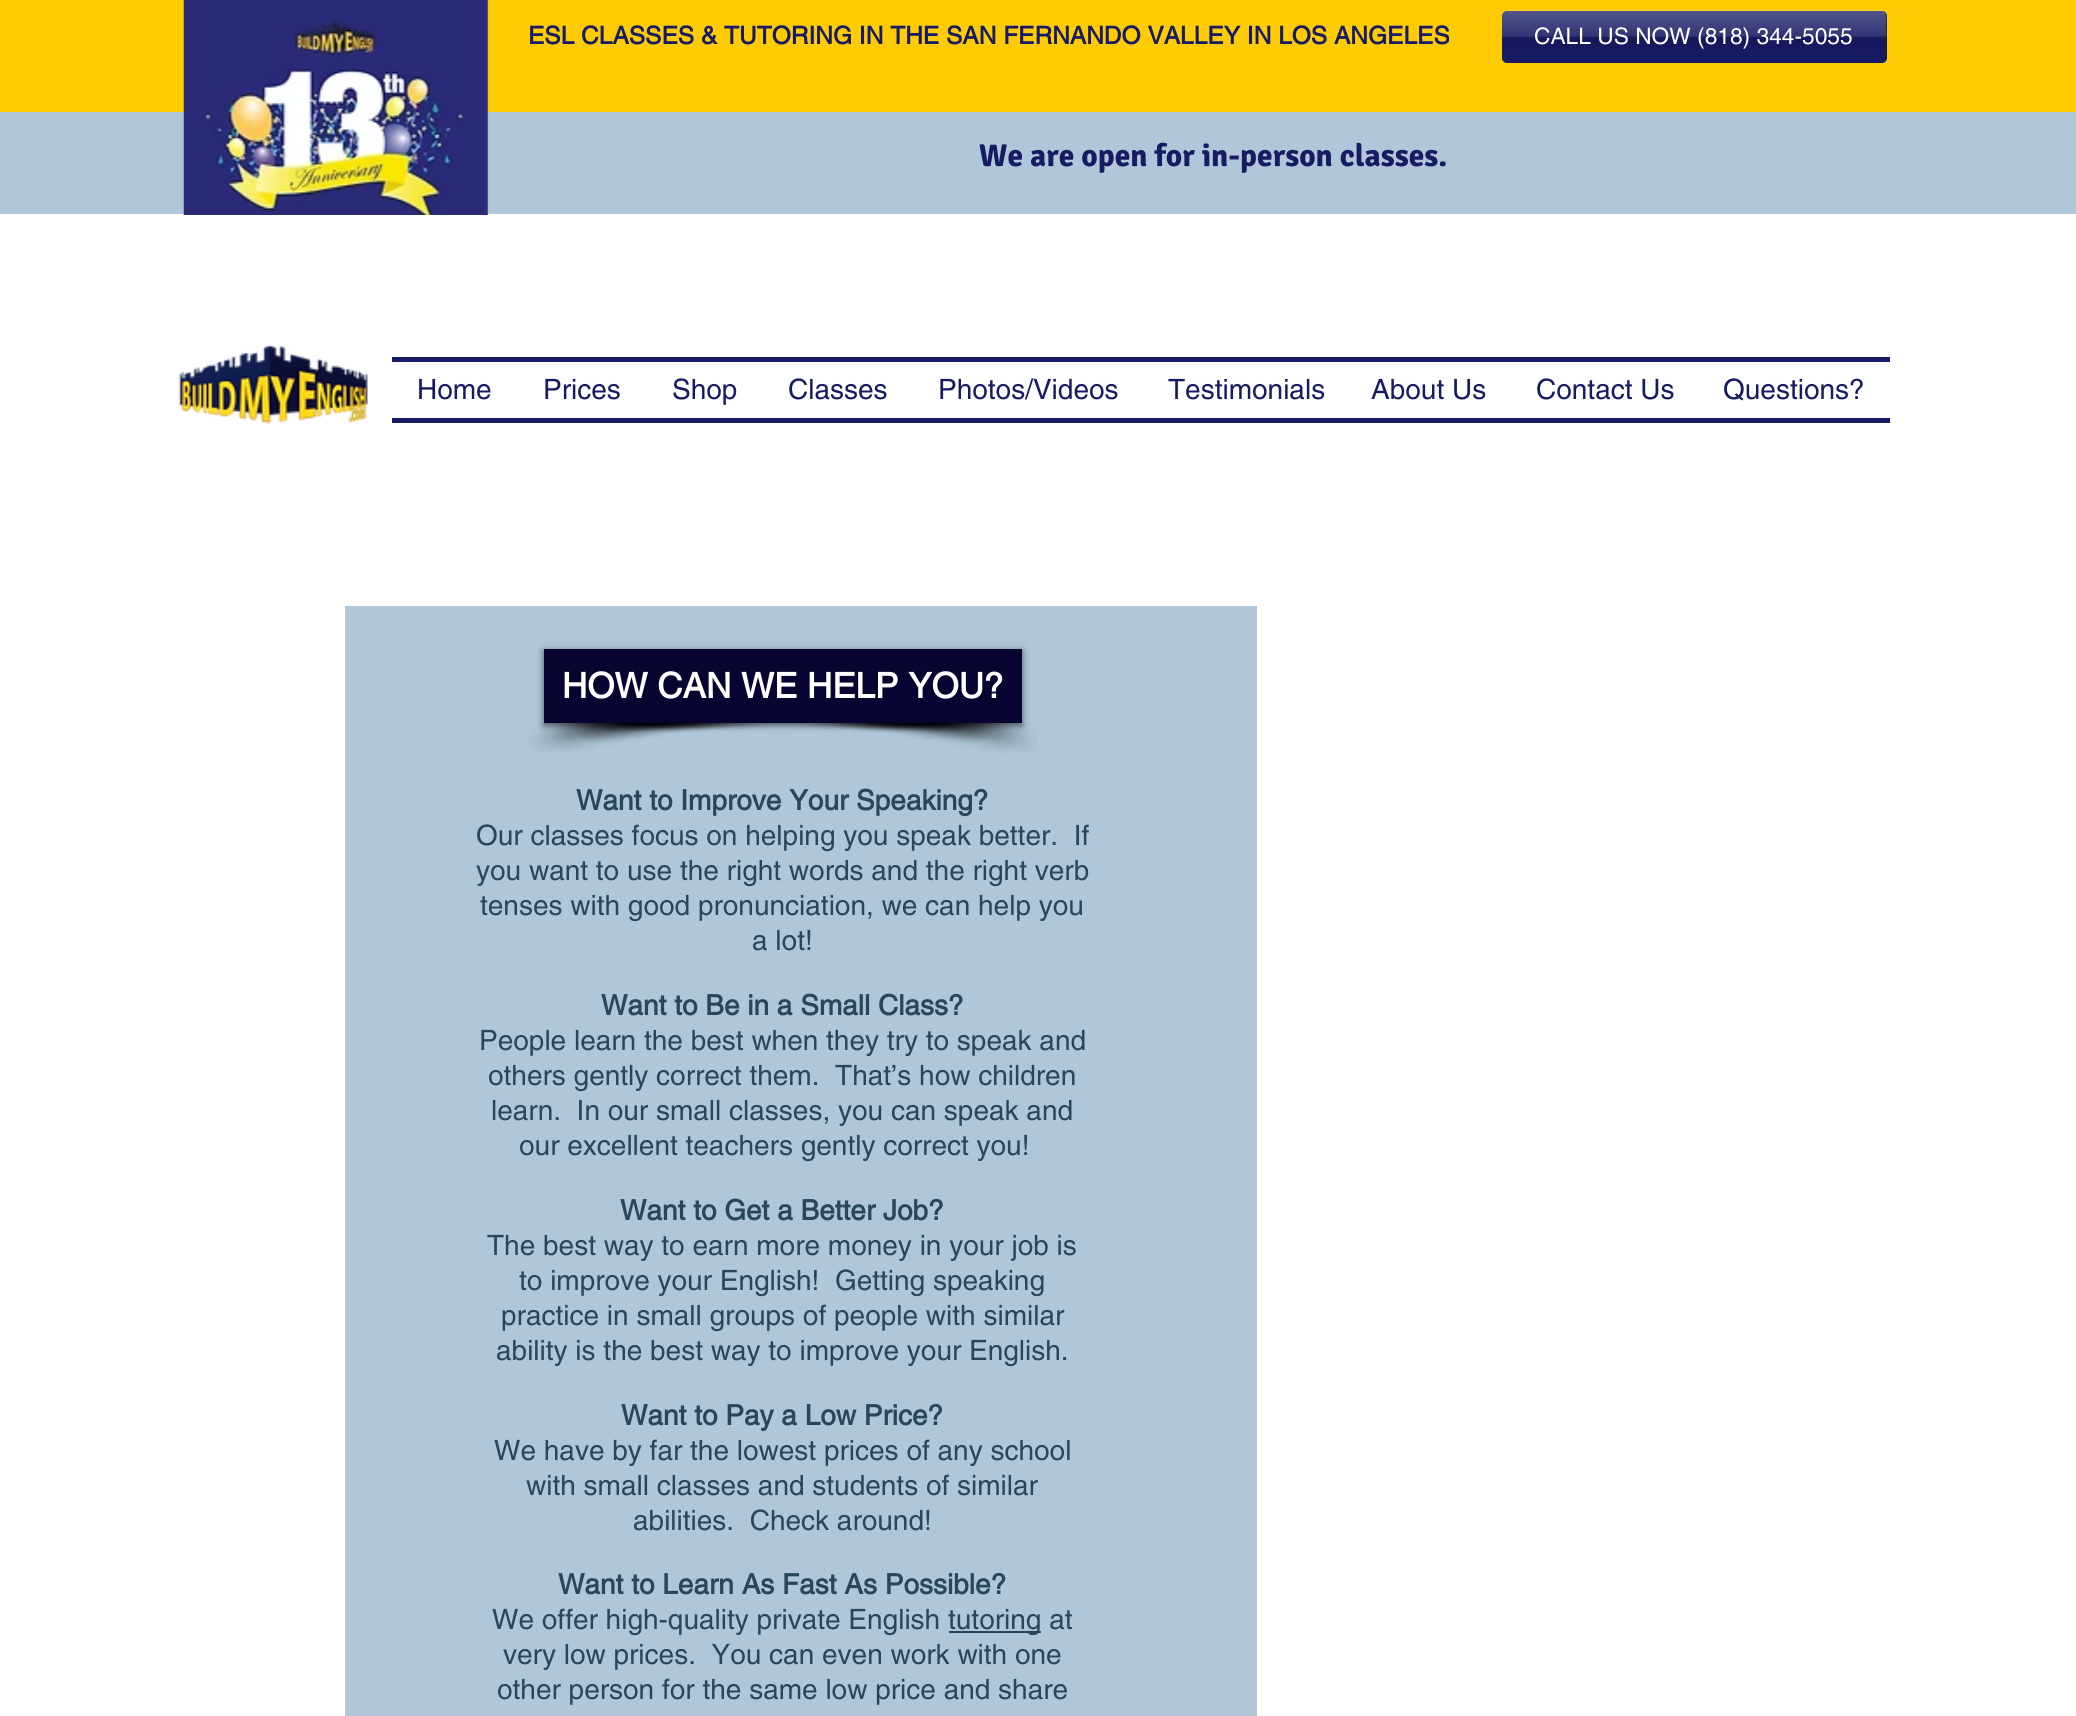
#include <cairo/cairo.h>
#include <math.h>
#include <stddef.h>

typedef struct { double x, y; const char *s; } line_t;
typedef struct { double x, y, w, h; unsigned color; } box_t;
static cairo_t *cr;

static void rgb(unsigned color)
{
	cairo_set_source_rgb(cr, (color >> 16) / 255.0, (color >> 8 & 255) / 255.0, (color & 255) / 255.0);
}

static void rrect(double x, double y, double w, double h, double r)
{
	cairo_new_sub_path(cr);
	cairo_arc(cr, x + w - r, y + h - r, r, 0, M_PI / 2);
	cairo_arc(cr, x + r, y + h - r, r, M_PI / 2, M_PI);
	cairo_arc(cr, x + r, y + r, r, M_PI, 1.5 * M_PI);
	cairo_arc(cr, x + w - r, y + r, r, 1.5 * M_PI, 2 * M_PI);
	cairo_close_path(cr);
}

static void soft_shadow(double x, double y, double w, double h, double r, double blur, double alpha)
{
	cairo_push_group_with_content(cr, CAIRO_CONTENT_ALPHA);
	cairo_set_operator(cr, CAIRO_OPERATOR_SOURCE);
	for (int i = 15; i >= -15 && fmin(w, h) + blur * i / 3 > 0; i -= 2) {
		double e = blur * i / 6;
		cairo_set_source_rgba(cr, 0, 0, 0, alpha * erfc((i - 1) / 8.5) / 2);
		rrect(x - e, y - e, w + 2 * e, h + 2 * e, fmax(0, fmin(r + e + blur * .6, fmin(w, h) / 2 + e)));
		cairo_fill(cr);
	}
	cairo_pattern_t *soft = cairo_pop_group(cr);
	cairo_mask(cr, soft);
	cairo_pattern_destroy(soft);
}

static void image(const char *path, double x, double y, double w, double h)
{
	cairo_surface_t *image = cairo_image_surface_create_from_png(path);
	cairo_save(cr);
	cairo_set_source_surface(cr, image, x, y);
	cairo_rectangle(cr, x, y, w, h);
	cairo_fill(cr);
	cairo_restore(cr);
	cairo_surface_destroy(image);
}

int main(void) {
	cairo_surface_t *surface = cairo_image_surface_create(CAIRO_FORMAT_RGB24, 2076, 1716);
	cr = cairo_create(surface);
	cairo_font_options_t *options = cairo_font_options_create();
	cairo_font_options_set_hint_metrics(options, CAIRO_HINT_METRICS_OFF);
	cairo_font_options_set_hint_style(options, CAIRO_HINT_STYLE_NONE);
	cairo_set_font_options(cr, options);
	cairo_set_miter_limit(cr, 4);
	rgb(0xffffff);
	cairo_paint(cr);
	rgb(0xffcb05);
	cairo_rectangle(cr, 0, 0, 2076, 112);
	cairo_fill(cr);
	rgb(0xafc7d8);
	cairo_rectangle(cr, 0, 112, 2076, 102);
	cairo_fill(cr);
	image("img/1.png", 183, 0, 306, 215);
	rgb(0x171b63);
	rrect(1502, 11, 385, 52, 5);
	cairo_fill(cr);
	image("img/2.png", 1501, 10, 386, 50);
	image("img/3.png", 178, 344, 190, 80);
	{
		static const box_t items[] = {
			{392, 357, 1498, 5, 0x171b63},
			{392, 418, 1498, 5, 0x171b63},
			{345, 606, 912, 1110, 0xafc7d8},
		};
		for (size_t i = 0; i < sizeof items / sizeof *items; i++) {
			rgb(items[i].color);
			cairo_rectangle(cr, items[i].x, items[i].y, items[i].w, items[i].h);
			cairo_fill(cr);
		}
	}
	image("img/4.png", 529, 723, 269, 30);
	image("img/5.png", 769, 723, 268, 30);
	rgb(0x000000);
	soft_shadow(544, 651, 478, 74, 0, 3.5, 0.6);
	rgb(0x070431);
	cairo_rectangle(cr, 544, 649, 478, 74);
	cairo_fill(cr);
	rgb(0x28475d);
	cairo_rectangle(cr, 949, 1631, 92, 2);
	cairo_fill(cr);
	cairo_select_font_face(cr, "helvetica", CAIRO_FONT_SLANT_NORMAL, CAIRO_FONT_WEIGHT_BOLD);
	cairo_set_font_size(cr, 24.5);
	rgb(0x171b63);
	cairo_move_to(cr, 528, 44);
	cairo_show_text(cr, "ESL CLASSES & TUTORING IN THE SAN FERNANDO VALLEY IN LOS ANGELES");
	cairo_select_font_face(cr, "helvetica", CAIRO_FONT_SLANT_NORMAL, CAIRO_FONT_WEIGHT_NORMAL);
	cairo_set_font_size(cr, 22.75);
	rgb(0xffffff);
	cairo_move_to(cr, 1534, 44);
	cairo_show_text(cr, "CALL US NOW (818) 344-5055");
	cairo_select_font_face(cr, "Signika", CAIRO_FONT_SLANT_NORMAL, CAIRO_FONT_WEIGHT_BOLD);
	cairo_set_font_size(cr, 31.5);
	rgb(0x171b63);
	cairo_move_to(cr, 979, 166);
	cairo_show_text(cr, "We are open for in-person classes.");
	cairo_select_font_face(cr, "helvetica", CAIRO_FONT_SLANT_NORMAL, CAIRO_FONT_WEIGHT_NORMAL);
	cairo_set_font_size(cr, 28);
	{
		static const line_t items[] = {
			{417, 399, "Home"},
			{543, 399, "Prices"},
			{672, 399, "Shop"},
			{788, 399, "Classes"},
			{938, 399, "Photos/Videos"},
			{1168, 399, "Testimonials"},
			{1371, 399, "About Us"},
			{1536, 399, "Contact Us"},
			{1723, 399, "Questions?"},
		};
		for (size_t i = 0; i < sizeof items / sizeof *items; i++) {
			cairo_move_to(cr, items[i].x, items[i].y);
			cairo_show_text(cr, items[i].s);
		}
	}
	cairo_select_font_face(cr, "helvetica", CAIRO_FONT_SLANT_NORMAL, CAIRO_FONT_WEIGHT_BOLD);
	cairo_set_font_size(cr, 35);
	rgb(0xffffff);
	cairo_move_to(cr, 562, 698);
	cairo_show_text(cr, "HOW CAN WE HELP YOU?");
	cairo_set_font_size(cr, 28);
	rgb(0x28475d);
	cairo_move_to(cr, 576, 810);
	cairo_show_text(cr, "Want to Improve Your Speaking?");
	cairo_select_font_face(cr, "helvetica", CAIRO_FONT_SLANT_NORMAL, CAIRO_FONT_WEIGHT_NORMAL);
	{
		static const line_t items[] = {
			{476, 845, "Our classes focus on helping you speak better.  If"},
			{476, 880, "you want to use the right words and the right verb"},
			{480, 915, "tenses with good pronunciation, we can help you"},
			{752, 950, "a lot!"},
		};
		for (size_t i = 0; i < sizeof items / sizeof *items; i++) {
			cairo_move_to(cr, items[i].x, items[i].y);
			cairo_show_text(cr, items[i].s);
		}
	}
	cairo_select_font_face(cr, "helvetica", CAIRO_FONT_SLANT_NORMAL, CAIRO_FONT_WEIGHT_BOLD);
	cairo_move_to(cr, 601, 1015);
	cairo_show_text(cr, "Want to Be in a Small Class?");
	cairo_select_font_face(cr, "helvetica", CAIRO_FONT_SLANT_NORMAL, CAIRO_FONT_WEIGHT_NORMAL);
	{
		static const line_t items[] = {
			{479, 1050, "People learn the best when they try to speak and"},
			{488, 1085, "others gently correct them.  That’s how children"},
			{491, 1120, "learn.  In our small classes, you can speak and"},
			{519, 1155, "our excellent teachers gently correct you!"},
		};
		for (size_t i = 0; i < sizeof items / sizeof *items; i++) {
			cairo_move_to(cr, items[i].x, items[i].y);
			cairo_show_text(cr, items[i].s);
		}
	}
	cairo_select_font_face(cr, "helvetica", CAIRO_FONT_SLANT_NORMAL, CAIRO_FONT_WEIGHT_BOLD);
	cairo_move_to(cr, 620, 1220);
	cairo_show_text(cr, "Want to Get a Better Job?");
	cairo_select_font_face(cr, "helvetica", CAIRO_FONT_SLANT_NORMAL, CAIRO_FONT_WEIGHT_NORMAL);
	{
		static const line_t items[] = {
			{487, 1255, "The best way to earn more money in your job is"},
			{519, 1290, "to improve your English!  Getting speaking"},
			{501, 1325, "practice in small groups of people with similar"},
			{496, 1360, "ability is the best way to improve your English."},
		};
		for (size_t i = 0; i < sizeof items / sizeof *items; i++) {
			cairo_move_to(cr, items[i].x, items[i].y);
			cairo_show_text(cr, items[i].s);
		}
	}
	cairo_select_font_face(cr, "helvetica", CAIRO_FONT_SLANT_NORMAL, CAIRO_FONT_WEIGHT_BOLD);
	cairo_move_to(cr, 621, 1425);
	cairo_show_text(cr, "Want to Pay a Low Price?");
	cairo_select_font_face(cr, "helvetica", CAIRO_FONT_SLANT_NORMAL, CAIRO_FONT_WEIGHT_NORMAL);
	{
		static const line_t items[] = {
			{494, 1460, "We have by far the lowest prices of any school"},
			{526, 1495, "with small classes and students of similar"},
			{633, 1530, "abilities.  Check around!"},
		};
		for (size_t i = 0; i < sizeof items / sizeof *items; i++) {
			cairo_move_to(cr, items[i].x, items[i].y);
			cairo_show_text(cr, items[i].s);
		}
	}
	cairo_select_font_face(cr, "helvetica", CAIRO_FONT_SLANT_NORMAL, CAIRO_FONT_WEIGHT_BOLD);
	cairo_move_to(cr, 558, 1594);
	cairo_show_text(cr, "Want to Learn As Fast As Possible?");
	cairo_select_font_face(cr, "helvetica", CAIRO_FONT_SLANT_NORMAL, CAIRO_FONT_WEIGHT_NORMAL);
	{
		static const line_t items[] = {
			{492, 1629, "We offer high-quality private English"},
			{948, 1629, "tutoring at"},
			{503, 1664, "very low prices.  You can even work with one"},
			{497, 1699, "other person for the same low price and share"},
		};
		for (size_t i = 0; i < sizeof items / sizeof *items; i++) {
			cairo_move_to(cr, items[i].x, items[i].y);
			cairo_show_text(cr, items[i].s);
		}
	}
	cairo_surface_write_to_png(surface, "page.png");
	cairo_font_options_destroy(options);
	cairo_destroy(cr);
	cairo_surface_destroy(surface);
	return 0;
}
